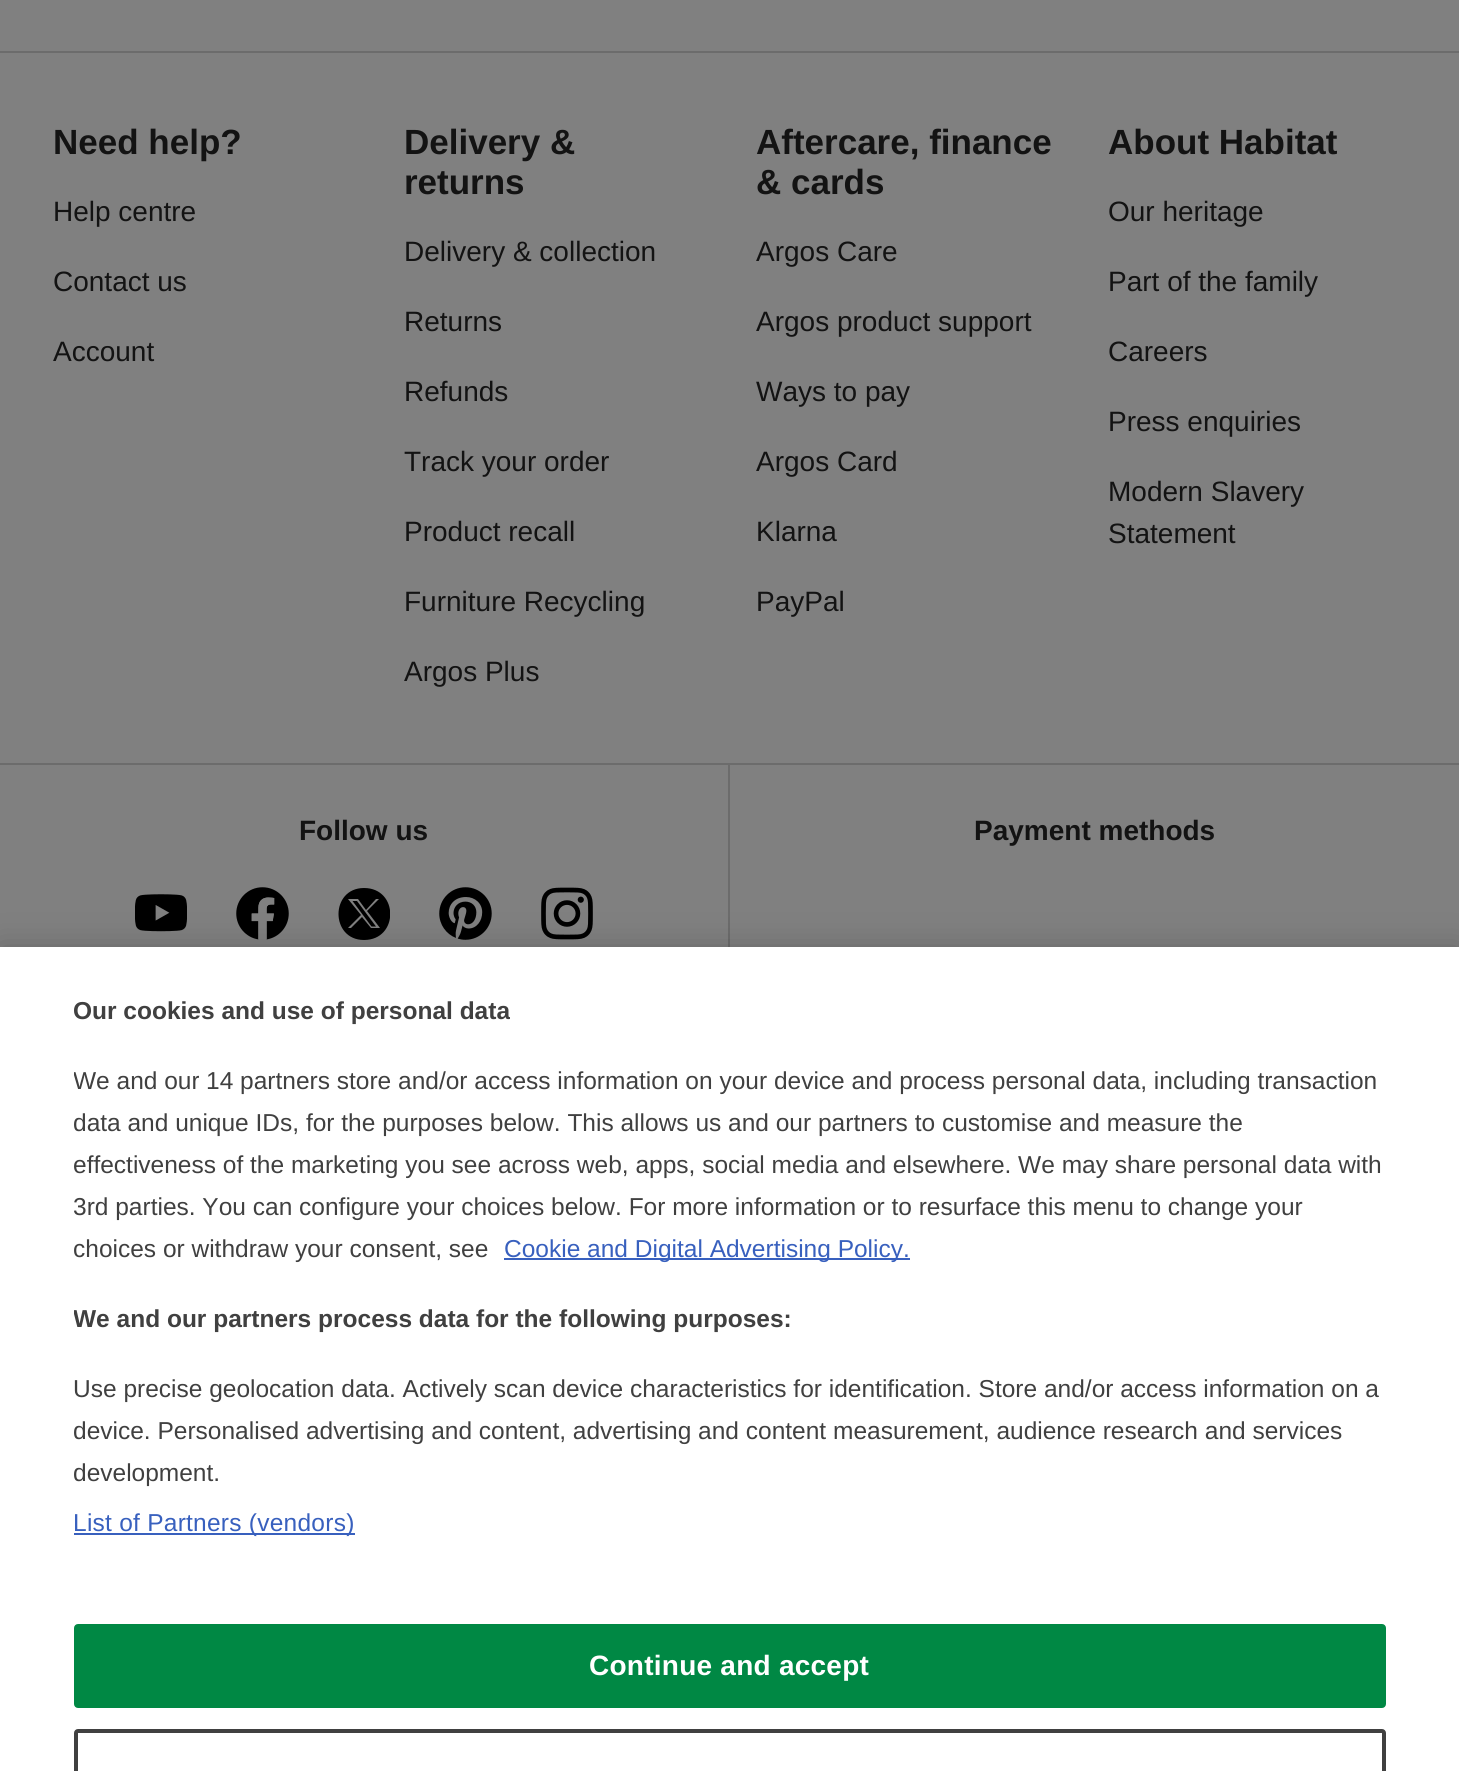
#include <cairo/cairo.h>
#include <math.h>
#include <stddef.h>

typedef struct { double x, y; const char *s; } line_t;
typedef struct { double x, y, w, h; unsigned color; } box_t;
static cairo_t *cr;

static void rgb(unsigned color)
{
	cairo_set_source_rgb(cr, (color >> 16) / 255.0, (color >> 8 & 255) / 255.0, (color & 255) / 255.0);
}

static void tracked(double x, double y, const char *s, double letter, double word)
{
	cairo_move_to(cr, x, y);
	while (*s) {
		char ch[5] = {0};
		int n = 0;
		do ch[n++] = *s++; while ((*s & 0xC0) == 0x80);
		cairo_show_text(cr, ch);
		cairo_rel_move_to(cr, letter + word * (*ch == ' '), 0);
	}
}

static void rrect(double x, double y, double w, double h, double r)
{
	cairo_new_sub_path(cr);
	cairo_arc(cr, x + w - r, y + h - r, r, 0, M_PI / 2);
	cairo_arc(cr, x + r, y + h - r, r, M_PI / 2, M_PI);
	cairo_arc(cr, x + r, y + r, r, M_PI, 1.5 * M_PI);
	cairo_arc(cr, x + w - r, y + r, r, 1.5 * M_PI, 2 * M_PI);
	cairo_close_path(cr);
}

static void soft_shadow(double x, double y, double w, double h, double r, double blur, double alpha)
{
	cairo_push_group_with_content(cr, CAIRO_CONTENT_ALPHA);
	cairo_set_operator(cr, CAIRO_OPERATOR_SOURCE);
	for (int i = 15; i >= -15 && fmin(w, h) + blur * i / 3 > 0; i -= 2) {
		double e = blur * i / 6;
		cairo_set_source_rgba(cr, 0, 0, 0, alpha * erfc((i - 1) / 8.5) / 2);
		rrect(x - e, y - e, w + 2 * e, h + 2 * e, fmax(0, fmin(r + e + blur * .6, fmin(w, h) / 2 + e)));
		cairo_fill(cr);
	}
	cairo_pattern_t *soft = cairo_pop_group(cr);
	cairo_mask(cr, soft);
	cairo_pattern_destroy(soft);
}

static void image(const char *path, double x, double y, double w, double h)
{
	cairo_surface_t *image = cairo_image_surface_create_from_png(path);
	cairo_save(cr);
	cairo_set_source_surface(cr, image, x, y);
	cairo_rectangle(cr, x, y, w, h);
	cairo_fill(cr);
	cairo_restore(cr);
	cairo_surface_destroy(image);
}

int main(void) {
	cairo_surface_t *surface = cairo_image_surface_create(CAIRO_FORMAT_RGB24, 1459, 1771);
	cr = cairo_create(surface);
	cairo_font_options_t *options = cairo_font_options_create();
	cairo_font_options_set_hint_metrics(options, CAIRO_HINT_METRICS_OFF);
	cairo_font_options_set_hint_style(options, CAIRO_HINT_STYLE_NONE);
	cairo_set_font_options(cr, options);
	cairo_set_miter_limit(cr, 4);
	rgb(0x808080);
	cairo_paint(cr);
	{
		static const box_t items[] = {
			{0, 51, 1459, 2, 0x6c6c6c},
			{0, 763, 1459, 2, 0x6c6c6c},
			{728, 765, 2, 182, 0x6c6c6c},
		};
		for (size_t i = 0; i < sizeof items / sizeof *items; i++) {
			rgb(items[i].color);
			cairo_rectangle(cr, items[i].x, items[i].y, items[i].w, items[i].h);
			cairo_fill(cr);
		}
	}
	image("img/1.png", 135, 894, 52, 38);
	image("img/2.png", 236, 887, 53, 53);
	rgb(0x000000);
	cairo_new_path(cr);
	cairo_move_to(cr, 352.5, 901);
	cairo_line_to(cr, 371.5, 926.5);
	cairo_line_to(cr, 376, 926.5);
	cairo_line_to(cr, 357, 901);
	cairo_close_path(cr);
	cairo_fill(cr);
	cairo_save(cr);
	cairo_rectangle(cr, 338, 887, 52, 53);
	cairo_clip(cr);
	cairo_new_path(cr);
	cairo_move_to(cr, 364, 888);
	cairo_curve_to(cr, 330, 888, 330, 940, 364, 940);
	cairo_curve_to(cr, 399, 940, 399, 888, 364, 888);
	cairo_close_path(cr);
	cairo_move_to(cr, 371, 928);
	cairo_line_to(cr, 362, 917);
	cairo_line_to(cr, 351, 928);
	cairo_line_to(cr, 348, 928);
	cairo_line_to(cr, 361, 915);
	cairo_line_to(cr, 348, 899);
	cairo_line_to(cr, 358, 899);
	cairo_line_to(cr, 366, 910);
	cairo_line_to(cr, 376, 899);
	cairo_line_to(cr, 379, 899);
	cairo_line_to(cr, 367, 911);
	cairo_line_to(cr, 380, 928);
	cairo_close_path(cr);
	cairo_fill(cr);
	cairo_restore(cr);
	image("img/3.png", 439, 887, 53, 53);
	image("img/4.png", 541, 887, 52, 53);
	rgb(0x000000);
	soft_shadow(0, 947, 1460, 824, 0, 16, 0.2);
	{
		static const box_t items[] = {
			{0, 947, 1459, 824, 0xffffff},
			{504, 1258, 406, 2, 0x3860be},
			{74, 1533, 281, 2, 0x3860be},
		};
		for (size_t i = 0; i < sizeof items / sizeof *items; i++) {
			rgb(items[i].color);
			cairo_rectangle(cr, items[i].x, items[i].y, items[i].w, items[i].h);
			cairo_fill(cr);
		}
	}
	rgb(0x008844);
	rrect(76, 1626, 1308, 80, 2);
	cairo_fill_preserve(cr);
	cairo_set_line_width(cr, 4);
	cairo_stroke(cr);
	rrect(76, 1731, 1308, 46, 2);
	rgb(0x404040);
	cairo_stroke(cr);
	cairo_select_font_face(cr, "Liberation Sans", CAIRO_FONT_SLANT_NORMAL, CAIRO_FONT_WEIGHT_BOLD);
	cairo_set_font_size(cr, 35);
	rgb(0x131313);
	cairo_move_to(cr, 53, 154);
	cairo_show_text(cr, "Need help?");
	cairo_select_font_face(cr, "Liberation Sans", CAIRO_FONT_SLANT_NORMAL, CAIRO_FONT_WEIGHT_NORMAL);
	cairo_set_font_size(cr, 28);
	{
		static const line_t items[] = {
			{53, 221, "Help centre"},
			{53, 291, "Contact us"},
			{53, 361, "Account"},
		};
		for (size_t i = 0; i < sizeof items / sizeof *items; i++) {
			cairo_move_to(cr, items[i].x, items[i].y);
			cairo_show_text(cr, items[i].s);
		}
	}
	cairo_select_font_face(cr, "Liberation Sans", CAIRO_FONT_SLANT_NORMAL, CAIRO_FONT_WEIGHT_BOLD);
	cairo_set_font_size(cr, 35);
	cairo_move_to(cr, 404, 154);
	cairo_show_text(cr, "Delivery &");
	cairo_move_to(cr, 404, 194);
	cairo_show_text(cr, "returns");
	cairo_select_font_face(cr, "Liberation Sans", CAIRO_FONT_SLANT_NORMAL, CAIRO_FONT_WEIGHT_NORMAL);
	cairo_set_font_size(cr, 28);
	{
		static const line_t items[] = {
			{404, 261, "Delivery & collection"},
			{404, 331, "Returns"},
			{404, 401, "Refunds"},
			{404, 471, "Track your order"},
			{404, 541, "Product recall"},
			{404, 611, "Furniture Recycling"},
			{404, 681, "Argos Plus"},
		};
		for (size_t i = 0; i < sizeof items / sizeof *items; i++) {
			cairo_move_to(cr, items[i].x, items[i].y);
			cairo_show_text(cr, items[i].s);
		}
	}
	cairo_select_font_face(cr, "Liberation Sans", CAIRO_FONT_SLANT_NORMAL, CAIRO_FONT_WEIGHT_BOLD);
	cairo_set_font_size(cr, 35);
	cairo_move_to(cr, 756, 154);
	cairo_show_text(cr, "Aftercare, finance");
	cairo_move_to(cr, 756, 194);
	cairo_show_text(cr, "& cards");
	cairo_select_font_face(cr, "Liberation Sans", CAIRO_FONT_SLANT_NORMAL, CAIRO_FONT_WEIGHT_NORMAL);
	cairo_set_font_size(cr, 28);
	{
		static const line_t items[] = {
			{756, 261, "Argos Care"},
			{756, 331, "Argos product support"},
			{756, 401, "Ways to pay"},
			{756, 471, "Argos Card"},
			{756, 541, "Klarna"},
			{756, 611, "PayPal"},
		};
		for (size_t i = 0; i < sizeof items / sizeof *items; i++) {
			cairo_move_to(cr, items[i].x, items[i].y);
			cairo_show_text(cr, items[i].s);
		}
	}
	cairo_select_font_face(cr, "Liberation Sans", CAIRO_FONT_SLANT_NORMAL, CAIRO_FONT_WEIGHT_BOLD);
	cairo_set_font_size(cr, 35);
	cairo_move_to(cr, 1108, 154);
	cairo_show_text(cr, "About Habitat");
	cairo_select_font_face(cr, "Liberation Sans", CAIRO_FONT_SLANT_NORMAL, CAIRO_FONT_WEIGHT_NORMAL);
	cairo_set_font_size(cr, 28);
	{
		static const line_t items[] = {
			{1108, 221, "Our heritage"},
			{1108, 291, "Part of the family"},
			{1108, 361, "Careers"},
			{1108, 431, "Press enquiries"},
			{1108, 501, "Modern Slavery"},
			{1108, 543, "Statement"},
		};
		for (size_t i = 0; i < sizeof items / sizeof *items; i++) {
			cairo_move_to(cr, items[i].x, items[i].y);
			cairo_show_text(cr, items[i].s);
		}
	}
	cairo_select_font_face(cr, "Liberation Sans", CAIRO_FONT_SLANT_NORMAL, CAIRO_FONT_WEIGHT_BOLD);
	cairo_move_to(cr, 299, 840);
	cairo_show_text(cr, "Follow us");
	cairo_move_to(cr, 974, 840);
	cairo_show_text(cr, "Payment methods");
	cairo_set_font_size(cr, 24.5);
	rgb(0x404040);
	cairo_move_to(cr, 73, 1019);
	cairo_show_text(cr, "Our cookies and use of personal data");
	cairo_save(cr);
	cairo_rectangle(cr, 74, 989, 1312, 572);
	cairo_clip(cr);
	cairo_select_font_face(cr, "Liberation Sans", CAIRO_FONT_SLANT_NORMAL, CAIRO_FONT_WEIGHT_NORMAL);
	cairo_move_to(cr, 73, 1089);
	cairo_show_text(cr, "We and our");
	cairo_restore(cr);
	cairo_select_font_face(cr, "Liberation Sans", CAIRO_FONT_SLANT_NORMAL, CAIRO_FONT_WEIGHT_NORMAL);
	{
		static const line_t items[] = {
			{206, 1089, "14 partners store and/or access information on your device and process personal data, including transaction"},
			{73, 1131, "data and unique IDs, for the purposes below. This allows us and our partners to customise and measure the"},
			{73, 1173, "effectiveness of the marketing you see across web, apps, social media and elsewhere. We may share personal data with"},
			{73, 1215, "3rd parties. You can configure your choices below. For more information or to resurface this menu to change your"},
			{73, 1257, "choices or withdraw your consent, see"},
		};
		for (size_t i = 0; i < sizeof items / sizeof *items; i++) {
			cairo_move_to(cr, items[i].x, items[i].y);
			cairo_show_text(cr, items[i].s);
		}
	}
	rgb(0x3860be);
	cairo_move_to(cr, 504, 1257);
	cairo_show_text(cr, "Cookie and Digital Advertising Policy.");
	cairo_save(cr);
	cairo_rectangle(cr, 74, 989, 1312, 572);
	cairo_clip(cr);
	cairo_select_font_face(cr, "Liberation Sans", CAIRO_FONT_SLANT_NORMAL, CAIRO_FONT_WEIGHT_BOLD);
	rgb(0x404040);
	cairo_move_to(cr, 73, 1327);
	cairo_show_text(cr, "We and our partners process data for the following purposes:");
	cairo_restore(cr);
	rgb(0x404040);
	{
		static const line_t items[] = {
			{73, 1397, "Use precise geolocation data. Actively scan device characteristics for identification. Store and/or access information on a"},
			{73, 1439, "device. Personalised advertising and content, advertising and content measurement, audience research and services"},
			{73, 1481, "development."},
		};
		for (size_t i = 0; i < sizeof items / sizeof *items; i++) {
			cairo_move_to(cr, items[i].x, items[i].y);
			cairo_show_text(cr, items[i].s);
		}
	}
	rgb(0x3860be);
	tracked(73, 1531, "List of Partners (vendors)", 0.25, 0);
	cairo_select_font_face(cr, "Liberation Sans", CAIRO_FONT_SLANT_NORMAL, CAIRO_FONT_WEIGHT_BOLD);
	cairo_set_font_size(cr, 28);
	rgb(0xffffff);
	tracked(589, 1675, "Continue and accept", 0.25, 0);
	cairo_surface_write_to_png(surface, "page.png");
	cairo_font_options_destroy(options);
	cairo_destroy(cr);
	cairo_surface_destroy(surface);
	return 0;
}
